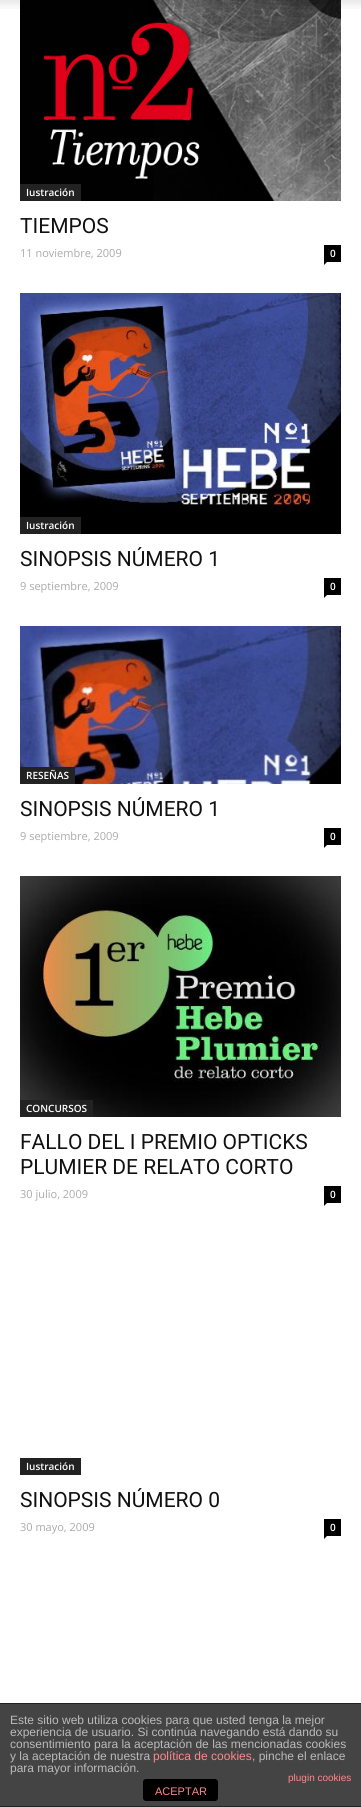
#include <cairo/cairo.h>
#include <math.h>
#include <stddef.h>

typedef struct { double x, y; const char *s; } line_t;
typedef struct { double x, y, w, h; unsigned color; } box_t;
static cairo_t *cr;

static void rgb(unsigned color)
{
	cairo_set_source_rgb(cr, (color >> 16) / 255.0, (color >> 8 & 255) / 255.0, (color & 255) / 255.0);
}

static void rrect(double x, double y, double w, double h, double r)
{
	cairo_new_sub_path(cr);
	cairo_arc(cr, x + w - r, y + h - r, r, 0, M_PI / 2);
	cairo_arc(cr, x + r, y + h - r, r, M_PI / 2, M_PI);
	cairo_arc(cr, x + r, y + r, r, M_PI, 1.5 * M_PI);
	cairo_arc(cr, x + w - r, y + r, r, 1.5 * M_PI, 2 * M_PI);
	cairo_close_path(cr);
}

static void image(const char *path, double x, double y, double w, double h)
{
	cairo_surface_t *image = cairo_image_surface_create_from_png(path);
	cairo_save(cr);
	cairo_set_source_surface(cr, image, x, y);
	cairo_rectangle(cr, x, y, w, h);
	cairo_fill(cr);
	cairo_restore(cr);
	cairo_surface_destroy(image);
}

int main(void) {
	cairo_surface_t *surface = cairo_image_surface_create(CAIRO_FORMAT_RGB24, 361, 1807);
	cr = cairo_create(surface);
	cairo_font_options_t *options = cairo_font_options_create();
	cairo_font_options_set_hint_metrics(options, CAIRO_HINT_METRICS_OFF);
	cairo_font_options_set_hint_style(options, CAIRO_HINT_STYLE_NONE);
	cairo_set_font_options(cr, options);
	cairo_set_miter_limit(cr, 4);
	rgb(0xffffff);
	cairo_paint(cr);
	image("img/2.png", 20, 0, 321, 201);
	image("img/1.png", 0, 0, 361, 9);
	rgb(0x222222);
	cairo_rectangle(cr, 20, 184, 61, 17);
	cairo_fill(cr);
	rgb(0x000000);
	cairo_rectangle(cr, 324, 245, 17, 17);
	cairo_fill(cr);
	cairo_new_path(cr);
	cairo_move_to(cr, 324, 262);
	cairo_line_to(cr, 327, 262);
	cairo_line_to(cr, 324, 265);
	cairo_close_path(cr);
	cairo_fill(cr);
	image("img/3.png", 20, 293, 321, 241);
	rgb(0x222222);
	cairo_rectangle(cr, 20, 517, 61, 17);
	cairo_fill(cr);
	rgb(0x000000);
	cairo_rectangle(cr, 324, 578, 17, 17);
	cairo_fill(cr);
	cairo_new_path(cr);
	cairo_move_to(cr, 324, 595);
	cairo_line_to(cr, 327, 595);
	cairo_line_to(cr, 324, 598);
	cairo_close_path(cr);
	cairo_fill(cr);
	image("img/4.png", 20, 626, 321, 158);
	rgb(0x222222);
	cairo_rectangle(cr, 20, 767, 55, 17);
	cairo_fill(cr);
	rgb(0x000000);
	cairo_rectangle(cr, 324, 828, 17, 17);
	cairo_fill(cr);
	cairo_new_path(cr);
	cairo_move_to(cr, 324, 845);
	cairo_line_to(cr, 327, 845);
	cairo_line_to(cr, 324, 848);
	cairo_close_path(cr);
	cairo_fill(cr);
	image("img/5.png", 20, 876, 321, 241);
	rgb(0x222222);
	cairo_rectangle(cr, 20, 1100, 73, 17);
	cairo_fill(cr);
	rgb(0x000000);
	cairo_rectangle(cr, 324, 1186, 17, 17);
	cairo_fill(cr);
	cairo_new_path(cr);
	cairo_move_to(cr, 324, 1203);
	cairo_line_to(cr, 327, 1203);
	cairo_line_to(cr, 324, 1206);
	cairo_close_path(cr);
	cairo_fill(cr);
	rgb(0x222222);
	cairo_rectangle(cr, 20, 1458, 61, 17);
	cairo_fill(cr);
	rgb(0x000000);
	cairo_rectangle(cr, 324, 1519, 17, 17);
	cairo_fill(cr);
	cairo_new_path(cr);
	cairo_move_to(cr, 324, 1536);
	cairo_line_to(cr, 327, 1536);
	cairo_line_to(cr, 324, 1539);
	cairo_close_path(cr);
	cairo_fill(cr);
	{
		static const box_t items[] = {
			{0, 1704, 361, 102, 0x444444},
			{0, 1703, 361, 1, 0x222222},
			{0, 1806, 361, 1, 0x222222},
		};
		for (size_t i = 0; i < sizeof items / sizeof *items; i++) {
			rgb(items[i].color);
			cairo_rectangle(cr, items[i].x, items[i].y, items[i].w, items[i].h);
			cairo_fill(cr);
		}
	}
	rgb(0x000000);
	rrect(143, 1779, 75, 22, 3);
	cairo_fill(cr);
	cairo_select_font_face(cr, "Open Sans SemiBold", CAIRO_FONT_SLANT_NORMAL, CAIRO_FONT_WEIGHT_NORMAL);
	cairo_set_font_size(cr, 10);
	rgb(0xffffff);
	cairo_move_to(cr, 26, 196);
	cairo_show_text(cr, "Iustración");
	cairo_select_font_face(cr, "Roboto", CAIRO_FONT_SLANT_NORMAL, CAIRO_FONT_WEIGHT_NORMAL);
	cairo_set_font_size(cr, 21);
	rgb(0x111111);
	cairo_move_to(cr, 20, 233);
	cairo_show_text(cr, "TIEMPOS");
	cairo_select_font_face(cr, "Open Sans", CAIRO_FONT_SLANT_NORMAL, CAIRO_FONT_WEIGHT_NORMAL);
	cairo_set_font_size(cr, 11);
	rgb(0xaaaaaa);
	cairo_move_to(cr, 20, 257);
	cairo_show_text(cr, "11 noviembre, 2009");
	cairo_select_font_face(cr, "Open Sans SemiBold", CAIRO_FONT_SLANT_NORMAL, CAIRO_FONT_WEIGHT_NORMAL);
	cairo_set_font_size(cr, 10);
	rgb(0xffffff);
	cairo_move_to(cr, 330, 257);
	cairo_show_text(cr, "0");
	cairo_move_to(cr, 26, 529);
	cairo_show_text(cr, "Iustración");
	cairo_select_font_face(cr, "Roboto", CAIRO_FONT_SLANT_NORMAL, CAIRO_FONT_WEIGHT_NORMAL);
	cairo_set_font_size(cr, 21);
	rgb(0x111111);
	cairo_move_to(cr, 20, 566);
	cairo_show_text(cr, "SINOPSIS NÚMERO 1");
	cairo_select_font_face(cr, "Open Sans", CAIRO_FONT_SLANT_NORMAL, CAIRO_FONT_WEIGHT_NORMAL);
	cairo_set_font_size(cr, 11);
	rgb(0xaaaaaa);
	cairo_move_to(cr, 20, 590);
	cairo_show_text(cr, "9 septiembre, 2009");
	cairo_select_font_face(cr, "Open Sans SemiBold", CAIRO_FONT_SLANT_NORMAL, CAIRO_FONT_WEIGHT_NORMAL);
	cairo_set_font_size(cr, 10);
	rgb(0xffffff);
	cairo_move_to(cr, 330, 590);
	cairo_show_text(cr, "0");
	cairo_move_to(cr, 26, 779);
	cairo_show_text(cr, "RESEÑAS");
	cairo_select_font_face(cr, "Roboto", CAIRO_FONT_SLANT_NORMAL, CAIRO_FONT_WEIGHT_NORMAL);
	cairo_set_font_size(cr, 21);
	rgb(0x111111);
	cairo_move_to(cr, 20, 816);
	cairo_show_text(cr, "SINOPSIS NÚMERO 1");
	cairo_select_font_face(cr, "Open Sans", CAIRO_FONT_SLANT_NORMAL, CAIRO_FONT_WEIGHT_NORMAL);
	cairo_set_font_size(cr, 11);
	rgb(0xaaaaaa);
	cairo_move_to(cr, 20, 840);
	cairo_show_text(cr, "9 septiembre, 2009");
	cairo_select_font_face(cr, "Open Sans SemiBold", CAIRO_FONT_SLANT_NORMAL, CAIRO_FONT_WEIGHT_NORMAL);
	cairo_set_font_size(cr, 10);
	rgb(0xffffff);
	cairo_move_to(cr, 330, 840);
	cairo_show_text(cr, "0");
	cairo_move_to(cr, 26, 1112);
	cairo_show_text(cr, "CONCURSOS");
	cairo_select_font_face(cr, "Roboto", CAIRO_FONT_SLANT_NORMAL, CAIRO_FONT_WEIGHT_NORMAL);
	cairo_set_font_size(cr, 21);
	rgb(0x111111);
	cairo_move_to(cr, 20, 1149);
	cairo_show_text(cr, "FALLO DEL I PREMIO OPTICKS");
	cairo_move_to(cr, 20, 1174);
	cairo_show_text(cr, "PLUMIER DE RELATO CORTO");
	cairo_select_font_face(cr, "Open Sans", CAIRO_FONT_SLANT_NORMAL, CAIRO_FONT_WEIGHT_NORMAL);
	cairo_set_font_size(cr, 11);
	rgb(0xaaaaaa);
	cairo_move_to(cr, 20, 1198);
	cairo_show_text(cr, "30 julio, 2009");
	cairo_select_font_face(cr, "Open Sans SemiBold", CAIRO_FONT_SLANT_NORMAL, CAIRO_FONT_WEIGHT_NORMAL);
	cairo_set_font_size(cr, 10);
	rgb(0xffffff);
	cairo_move_to(cr, 330, 1198);
	cairo_show_text(cr, "0");
	cairo_move_to(cr, 26, 1470);
	cairo_show_text(cr, "Iustración");
	cairo_select_font_face(cr, "Roboto", CAIRO_FONT_SLANT_NORMAL, CAIRO_FONT_WEIGHT_NORMAL);
	cairo_set_font_size(cr, 21);
	rgb(0x111111);
	cairo_move_to(cr, 20, 1507);
	cairo_show_text(cr, "SINOPSIS NÚMERO 0");
	cairo_select_font_face(cr, "Open Sans", CAIRO_FONT_SLANT_NORMAL, CAIRO_FONT_WEIGHT_NORMAL);
	cairo_set_font_size(cr, 11);
	rgb(0xaaaaaa);
	cairo_move_to(cr, 20, 1531);
	cairo_show_text(cr, "30 mayo, 2009");
	cairo_select_font_face(cr, "Open Sans SemiBold", CAIRO_FONT_SLANT_NORMAL, CAIRO_FONT_WEIGHT_NORMAL);
	cairo_set_font_size(cr, 10);
	rgb(0xffffff);
	cairo_move_to(cr, 330, 1531);
	cairo_show_text(cr, "0");
	cairo_select_font_face(cr, "Liberation Sans", CAIRO_FONT_SLANT_NORMAL, CAIRO_FONT_WEIGHT_NORMAL);
	cairo_set_font_size(cr, 12);
	rgb(0xbbbbbb);
	{
		static const line_t items[] = {
			{10, 1724, "Este sitio web utiliza cookies para que usted tenga la mejor"},
			{10, 1736, "experiencia de usuario. Si continúa navegando está dando su"},
			{10, 1748, "consentimiento para la aceptación de las mencionadas cookies"},
			{10, 1760, "y la aceptación de nuestra"},
		};
		for (size_t i = 0; i < sizeof items / sizeof *items; i++) {
			cairo_move_to(cr, items[i].x, items[i].y);
			cairo_show_text(cr, items[i].s);
		}
	}
	rgb(0xff8888);
	cairo_move_to(cr, 153, 1760);
	cairo_show_text(cr, "política de cookies");
	rgb(0xbbbbbb);
	cairo_move_to(cr, 252, 1760);
	cairo_show_text(cr, ", pinche el enlace");
	cairo_move_to(cr, 10, 1772);
	cairo_show_text(cr, "para mayor información.");
	cairo_set_font_size(cr, 10);
	rgb(0xff8888);
	cairo_move_to(cr, 288, 1781);
	cairo_show_text(cr, "plugin cookies");
	cairo_set_font_size(cr, 11);
	cairo_move_to(cr, 155, 1795);
	cairo_show_text(cr, "ACEPTAR");
	cairo_surface_write_to_png(surface, "page.png");
	cairo_font_options_destroy(options);
	cairo_destroy(cr);
	cairo_surface_destroy(surface);
	return 0;
}
